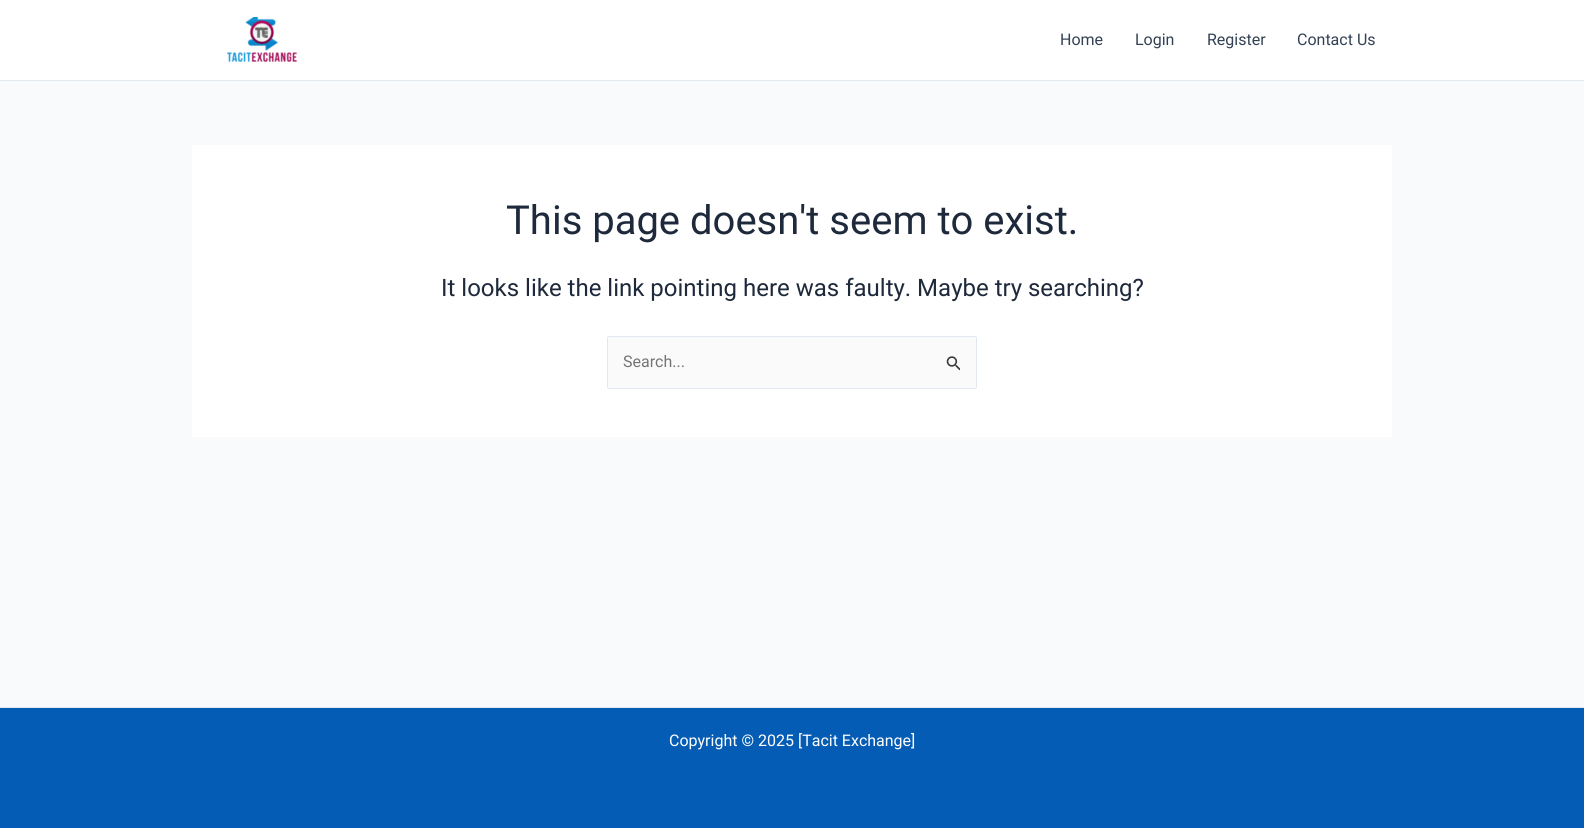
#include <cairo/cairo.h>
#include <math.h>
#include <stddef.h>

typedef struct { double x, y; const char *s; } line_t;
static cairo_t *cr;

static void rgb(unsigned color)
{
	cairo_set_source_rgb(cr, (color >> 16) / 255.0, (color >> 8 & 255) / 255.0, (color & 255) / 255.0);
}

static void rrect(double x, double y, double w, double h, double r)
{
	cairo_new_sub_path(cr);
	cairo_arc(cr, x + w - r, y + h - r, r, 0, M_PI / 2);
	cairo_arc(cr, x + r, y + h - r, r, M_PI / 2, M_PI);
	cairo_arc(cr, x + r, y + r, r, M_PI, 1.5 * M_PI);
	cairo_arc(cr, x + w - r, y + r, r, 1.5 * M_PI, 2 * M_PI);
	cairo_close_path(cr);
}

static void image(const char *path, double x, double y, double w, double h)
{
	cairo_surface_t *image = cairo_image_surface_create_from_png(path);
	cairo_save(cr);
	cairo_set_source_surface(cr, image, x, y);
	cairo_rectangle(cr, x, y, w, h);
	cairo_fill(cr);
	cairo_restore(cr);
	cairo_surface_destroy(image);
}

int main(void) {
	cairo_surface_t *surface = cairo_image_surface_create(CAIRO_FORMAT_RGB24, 1584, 828);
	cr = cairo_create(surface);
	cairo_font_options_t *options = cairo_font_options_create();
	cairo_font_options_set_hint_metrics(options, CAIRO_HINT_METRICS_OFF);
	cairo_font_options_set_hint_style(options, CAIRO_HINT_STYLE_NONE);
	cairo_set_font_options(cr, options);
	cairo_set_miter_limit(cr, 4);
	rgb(0xf9fafb);
	cairo_paint(cr);
	rgb(0xffffff);
	cairo_rectangle(cr, 0, 0, 1584, 80);
	cairo_fill(cr);
	rgb(0xe2e8f0);
	cairo_rectangle(cr, 0, 80, 1584, 1);
	cairo_fill(cr);
	image("img/1.png", 227, 17, 70, 45);
	rgb(0xffffff);
	cairo_rectangle(cr, 192, 145, 1200, 292);
	cairo_fill(cr);
	rgb(0xfafafa);
	rrect(607.5, 336.5, 369, 52, 1.5);
	cairo_fill_preserve(cr);
	rgb(0xe2e8f0);
	cairo_set_line_width(cr, 1);
	cairo_stroke(cr);
	image("img/2.png", 946, 356, 14, 15);
	rgb(0x045cb4);
	cairo_rectangle(cr, 0, 708, 1584, 120);
	cairo_fill(cr);
	rgb(0xe2e8f0);
	cairo_rectangle(cr, 0, 707, 1584, 1);
	cairo_fill(cr);
	cairo_select_font_face(cr, "Roboto", CAIRO_FONT_SLANT_NORMAL, CAIRO_FONT_WEIGHT_NORMAL);
	cairo_set_font_size(cr, 16);
	rgb(0x334155);
	{
		static const line_t items[] = {
			{1060, 45, "Home"},
			{1135, 45, "Login"},
			{1207, 45, "Register"},
			{1297, 45, "Contact Us"},
		};
		for (size_t i = 0; i < sizeof items / sizeof *items; i++) {
			cairo_move_to(cr, items[i].x, items[i].y);
			cairo_show_text(cr, items[i].s);
		}
	}
	cairo_set_font_size(cr, 40);
	rgb(0x1e293b);
	cairo_move_to(cr, 506, 234);
	cairo_show_text(cr, "This page doesn't seem to exist.");
	cairo_set_font_size(cr, 24);
	cairo_move_to(cr, 441, 296);
	cairo_show_text(cr, "It looks like the link pointing here was faulty. Maybe try searching?");
	cairo_set_font_size(cr, 16);
	rgb(0x757575);
	cairo_move_to(cr, 623, 367);
	cairo_show_text(cr, "Search...");
	rgb(0xffffff);
	cairo_move_to(cr, 669, 746);
	cairo_show_text(cr, "Copyright © 2025 [Tacit Exchange]");
	cairo_surface_write_to_png(surface, "page.png");
	cairo_font_options_destroy(options);
	cairo_destroy(cr);
	cairo_surface_destroy(surface);
	return 0;
}
